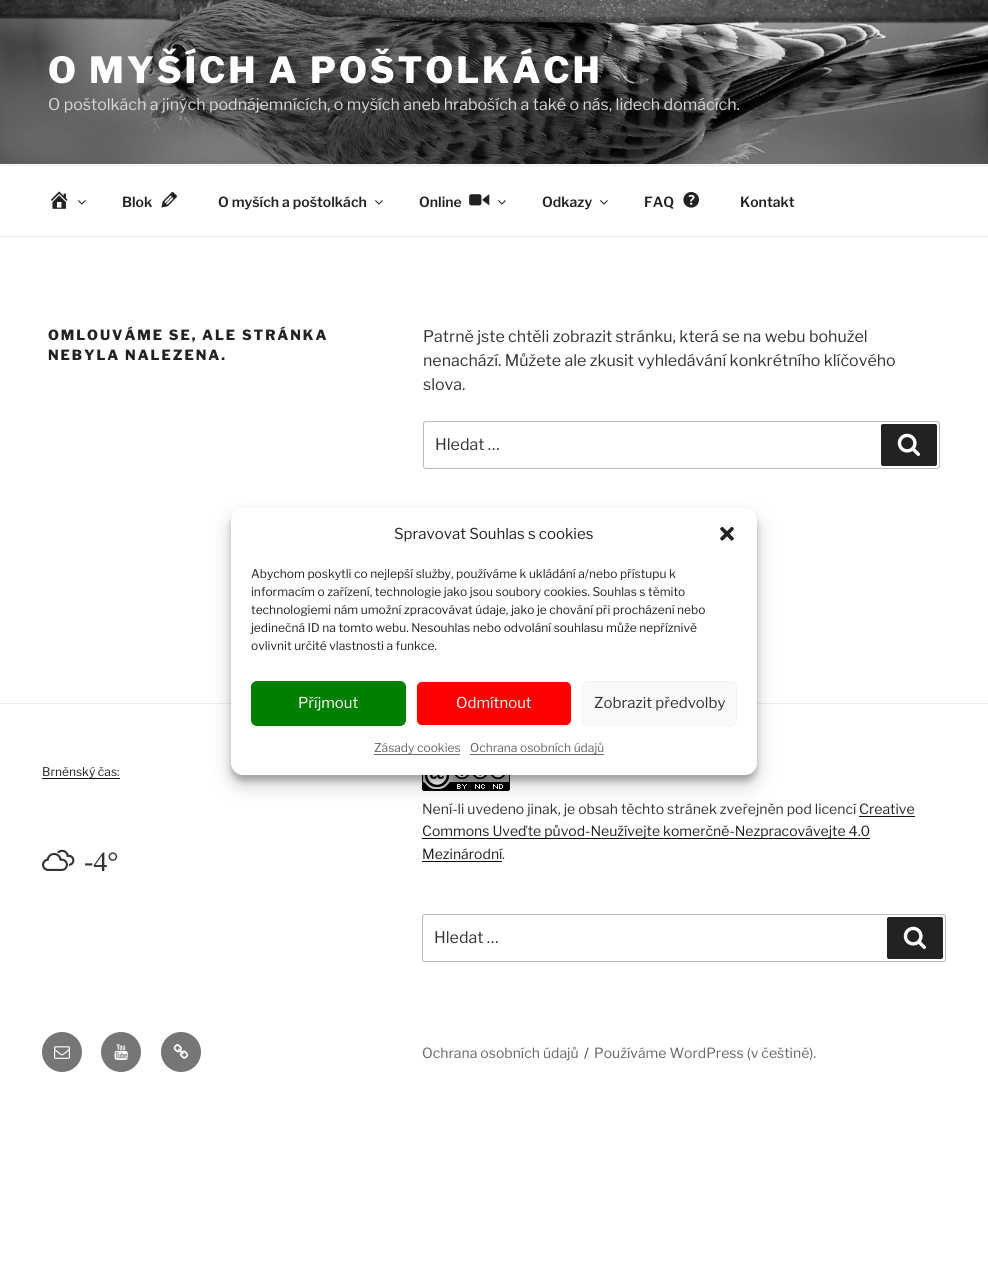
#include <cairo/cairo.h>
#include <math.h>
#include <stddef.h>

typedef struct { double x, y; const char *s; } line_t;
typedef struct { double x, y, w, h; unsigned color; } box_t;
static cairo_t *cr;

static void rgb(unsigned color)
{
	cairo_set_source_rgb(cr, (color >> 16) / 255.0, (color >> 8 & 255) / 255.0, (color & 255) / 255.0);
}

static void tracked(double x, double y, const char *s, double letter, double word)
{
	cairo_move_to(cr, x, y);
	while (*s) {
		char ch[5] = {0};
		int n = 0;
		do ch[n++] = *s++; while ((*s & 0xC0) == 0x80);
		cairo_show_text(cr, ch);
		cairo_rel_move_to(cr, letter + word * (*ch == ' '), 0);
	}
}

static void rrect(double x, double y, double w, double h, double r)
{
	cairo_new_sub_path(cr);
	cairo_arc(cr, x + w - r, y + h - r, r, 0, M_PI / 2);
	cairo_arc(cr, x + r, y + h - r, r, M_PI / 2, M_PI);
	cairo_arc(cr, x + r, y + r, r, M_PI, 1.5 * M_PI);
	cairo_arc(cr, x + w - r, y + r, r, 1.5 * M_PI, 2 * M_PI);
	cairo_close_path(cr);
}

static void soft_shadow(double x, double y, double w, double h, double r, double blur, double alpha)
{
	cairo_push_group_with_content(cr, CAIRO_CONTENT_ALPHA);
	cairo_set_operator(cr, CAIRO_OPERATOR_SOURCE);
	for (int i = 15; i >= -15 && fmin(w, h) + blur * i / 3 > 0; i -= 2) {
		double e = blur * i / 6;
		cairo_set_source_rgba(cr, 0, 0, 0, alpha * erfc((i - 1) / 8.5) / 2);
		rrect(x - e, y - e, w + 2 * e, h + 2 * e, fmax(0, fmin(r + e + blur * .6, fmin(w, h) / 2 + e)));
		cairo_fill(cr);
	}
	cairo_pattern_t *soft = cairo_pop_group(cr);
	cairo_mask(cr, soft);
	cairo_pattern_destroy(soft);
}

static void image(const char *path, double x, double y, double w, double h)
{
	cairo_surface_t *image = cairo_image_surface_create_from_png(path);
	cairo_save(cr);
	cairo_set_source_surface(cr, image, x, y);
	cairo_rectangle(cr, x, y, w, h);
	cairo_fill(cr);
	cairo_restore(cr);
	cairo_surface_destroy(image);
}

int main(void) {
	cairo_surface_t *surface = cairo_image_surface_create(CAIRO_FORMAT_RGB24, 988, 1282);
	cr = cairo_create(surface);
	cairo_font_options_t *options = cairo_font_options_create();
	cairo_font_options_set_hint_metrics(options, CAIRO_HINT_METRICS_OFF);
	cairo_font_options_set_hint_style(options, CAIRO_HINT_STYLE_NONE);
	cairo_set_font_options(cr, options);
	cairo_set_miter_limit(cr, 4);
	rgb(0xffffff);
	cairo_paint(cr);
	rgb(0xfafafa);
	cairo_rectangle(cr, 0, 164, 988, 1);
	cairo_fill(cr);
	image("img/1.png", 0, 0, 988, 164);
	rgb(0xeeeeee);
	cairo_rectangle(cr, 0, 165, 988, 1);
	cairo_fill(cr);
	cairo_rectangle(cr, 0, 236, 988, 1);
	cairo_fill(cr);
	image("img/2.png", 50, 191, 18, 18);
	image("img/3.png", 78, 200, 8, 5);
	image("img/4.png", 161, 192, 16, 16);
	image("img/3.png", 375, 200, 8, 5);
	image("img/5.png", 469, 194, 21, 12);
	image("img/3.png", 498, 200, 8, 5);
	image("img/3.png", 600, 200, 8, 5);
	image("img/6.png", 683, 192, 16, 16);
	rrect(423.5, 421.5, 516, 47, 2.5);
	rgb(0xbbbbbb);
	cairo_set_line_width(cr, 1);
	cairo_stroke(cr);
	rgb(0x222222);
	rrect(881, 424, 56, 42, 2);
	cairo_fill(cr);
	image("img/7.png", 897, 433, 23, 23);
	rgb(0xeeeeee);
	cairo_rectangle(cr, 0, 703, 988, 1);
	cairo_fill(cr);
	rgb(0x0f0f0f);
	cairo_rectangle(cr, 42, 778, 78, 1);
	cairo_fill(cr);
	image("img/8.png", 42, 849, 33, 22);
	image("img/9.png", 422, 775, 88, 16);
	{
		static const box_t items[] = {
			{859, 816, 56, 1, 0x0f0f0f},
			{422, 838, 448, 1, 0x0f0f0f},
			{422, 861, 80, 1, 0x0f0f0f},
		};
		for (size_t i = 0; i < sizeof items / sizeof *items; i++) {
			rgb(items[i].color);
			cairo_rectangle(cr, items[i].x, items[i].y, items[i].w, items[i].h);
			cairo_fill(cr);
		}
	}
	rrect(422.5, 914.5, 523, 47, 2.5);
	rgb(0xbbbbbb);
	cairo_stroke(cr);
	rgb(0x222222);
	rrect(887, 917, 56, 42, 2);
	cairo_fill(cr);
	image("img/7.png", 903, 926, 23, 23);
	rgb(0x767676);
	cairo_arc(cr, 62, 1052, 20, 0, 2 * M_PI);
	cairo_fill(cr);
	image("img/10.png", 54, 1046, 16, 13);
	cairo_arc(cr, 121, 1052, 20, 0, 2 * M_PI);
	cairo_fill(cr);
	image("img/11.png", 114, 1044, 14, 16);
	cairo_arc(cr, 181, 1052, 20, 0, 2 * M_PI);
	cairo_fill(cr);
	image("img/12.png", 173, 1044, 16, 15);
	rgb(0x000000);
	soft_shadow(231, 514, 526, 267, 12, 3, 0.23);
	soft_shadow(231, 518, 526, 267, 12, 10, 0.19);
	rgb(0xffffff);
	rrect(231, 508, 526, 267, 12);
	cairo_fill(cr);
	image("img/13.png", 720, 526, 14, 15);
	rgb(0x008000);
	rrect(251.5, 681.5, 154, 44, 5.5);
	cairo_fill_preserve(cr);
	cairo_stroke(cr);
	rgb(0xff0000);
	rrect(416.5, 681.5, 155, 44, 5.5);
	cairo_fill_preserve(cr);
	rgb(0xf2f2f2);
	cairo_stroke(cr);
	rgb(0xf9f9f9);
	rrect(582.5, 681.5, 154, 44, 5.5);
	cairo_fill_preserve(cr);
	rgb(0xf2f2f2);
	cairo_stroke(cr);
	rgb(0x696969);
	cairo_rectangle(cr, 374, 754, 86, 1);
	cairo_fill(cr);
	cairo_rectangle(cr, 470, 754, 134, 1);
	cairo_fill(cr);
	cairo_select_font_face(cr, "Libre Franklin Thin", CAIRO_FONT_SLANT_NORMAL, CAIRO_FONT_WEIGHT_NORMAL);
	cairo_set_font_size(cr, 36);
	rgb(0xffffff);
	tracked(48, 83, "O MYŠÍCH A POŠTOLKÁCH", 2.9, 0);
	cairo_select_font_face(cr, "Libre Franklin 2 Thin", CAIRO_FONT_SLANT_NORMAL, CAIRO_FONT_WEIGHT_NORMAL);
	cairo_set_font_size(cr, 16);
	rgb(0xd9d9d9);
	cairo_move_to(cr, 48, 110);
	cairo_show_text(cr, "O poštolkách a jiných podnájemnících, o myších aneb hraboších a také o nás, lidech domácích.");
	cairo_select_font_face(cr, "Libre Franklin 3 Thin", CAIRO_FONT_SLANT_NORMAL, CAIRO_FONT_WEIGHT_NORMAL);
	cairo_set_font_size(cr, 14);
	rgb(0x222222);
	{
		static const line_t items[] = {
			{122, 207, "Blok"},
			{218, 207, "O myších a poštolkách"},
			{419, 207, "Online"},
			{542, 207, "Odkazy"},
			{644, 207, "FAQ"},
			{740, 207, "Kontakt"},
		};
		for (size_t i = 0; i < sizeof items / sizeof *items; i++) {
			cairo_move_to(cr, items[i].x, items[i].y);
			cairo_show_text(cr, items[i].s);
		}
	}
	cairo_select_font_face(cr, "Libre Franklin Thin", CAIRO_FONT_SLANT_NORMAL, CAIRO_FONT_WEIGHT_NORMAL);
	tracked(48, 340, "OMLOUVÁME SE, ALE STRÁNKA", 1.95, 0);
	tracked(48, 360, "NEBYLA NALEZENA.", 1.95, 0);
	cairo_select_font_face(cr, "Libre Franklin 2 Thin", CAIRO_FONT_SLANT_NORMAL, CAIRO_FONT_WEIGHT_NORMAL);
	cairo_set_font_size(cr, 16);
	rgb(0x333333);
	{
		static const line_t items[] = {
			{423, 342, "Patrně jste chtěli zobrazit stránku, která se na webu bohužel"},
			{423, 366, "nenachází. Můžete ale zkusit vyhledávání konkrétního klíčového"},
			{423, 390, "slova."},
			{435, 450, "Hledat …"},
		};
		for (size_t i = 0; i < sizeof items / sizeof *items; i++) {
			cairo_move_to(cr, items[i].x, items[i].y);
			cairo_show_text(cr, items[i].s);
		}
	}
	cairo_set_font_size(cr, 12);
	rgb(0x222222);
	cairo_move_to(cr, 42, 776);
	cairo_show_text(cr, "Brněnský čas:");
	cairo_select_font_face(cr, "Liberation Serif", CAIRO_FONT_SLANT_NORMAL, CAIRO_FONT_WEIGHT_NORMAL);
	cairo_set_font_size(cr, 28);
	rgb(0x333333);
	cairo_move_to(cr, 84, 871);
	cairo_show_text(cr, "-4°");
	cairo_select_font_face(cr, "Libre Franklin 2 Thin", CAIRO_FONT_SLANT_NORMAL, CAIRO_FONT_WEIGHT_NORMAL);
	cairo_set_font_size(cr, 14);
	cairo_move_to(cr, 422, 814);
	cairo_show_text(cr, "Není-li uvedeno jinak, je obsah těchto stránek zveřejněn pod licencí");
	rgb(0x222222);
	{
		static const line_t items[] = {
			{859, 814, "Creative"},
			{422, 836, "Commons Uveďte původ-Neužívejte komerčně-Nezpracovávejte 4.0"},
			{422, 859, "Mezinárodní"},
		};
		for (size_t i = 0; i < sizeof items / sizeof *items; i++) {
			cairo_move_to(cr, items[i].x, items[i].y);
			cairo_show_text(cr, items[i].s);
		}
	}
	rgb(0x333333);
	cairo_move_to(cr, 502, 859);
	cairo_show_text(cr, ".");
	cairo_set_font_size(cr, 16);
	cairo_move_to(cr, 434, 943);
	cairo_show_text(cr, "Hledat …");
	cairo_set_font_size(cr, 14);
	rgb(0x666666);
	cairo_move_to(cr, 422, 1058);
	cairo_show_text(cr, "Ochrana osobních údajů");
	rgb(0x333333);
	cairo_move_to(cr, 584, 1058);
	cairo_show_text(cr, "/");
	rgb(0x666666);
	cairo_move_to(cr, 594, 1058);
	cairo_show_text(cr, "Používáme WordPress (v češtině).");
	cairo_set_font_size(cr, 15);
	rgb(0x222222);
	cairo_move_to(cr, 394, 539);
	cairo_show_text(cr, "Spravovat Souhlas s cookies");
	cairo_set_font_size(cr, 12);
	{
		static const line_t items[] = {
			{251, 578, "Abychom poskytli co nejlepší služby, používáme k ukládání a/nebo přístupu k"},
			{251, 596, "informacím o zařízení, technologie jako jsou soubory cookies. Souhlas s těmito"},
			{251, 614, "technologiemi nám umožní zpracovávat údaje, jako je chování při procházení nebo"},
			{251, 632, "jedinečná ID na tomto webu. Nesouhlas nebo odvolání souhlasu může nepříznivě"},
			{251, 650, "ovlivnit určité vlastnosti a funkce."},
		};
		for (size_t i = 0; i < sizeof items / sizeof *items; i++) {
			cairo_move_to(cr, items[i].x, items[i].y);
			cairo_show_text(cr, items[i].s);
		}
	}
	cairo_set_font_size(cr, 15);
	rgb(0xffffff);
	cairo_move_to(cr, 298, 708);
	cairo_show_text(cr, "Příjmout");
	cairo_move_to(cr, 456, 708);
	cairo_show_text(cr, "Odmítnout");
	rgb(0x333333);
	cairo_move_to(cr, 594, 708);
	cairo_show_text(cr, "Zobrazit předvolby");
	cairo_set_font_size(cr, 12);
	rgb(0x666666);
	cairo_move_to(cr, 374, 752);
	cairo_show_text(cr, "Zásady cookies");
	cairo_move_to(cr, 470, 752);
	cairo_show_text(cr, "Ochrana osobních údajů");
	cairo_surface_write_to_png(surface, "page.png");
	cairo_font_options_destroy(options);
	cairo_destroy(cr);
	cairo_surface_destroy(surface);
	return 0;
}
